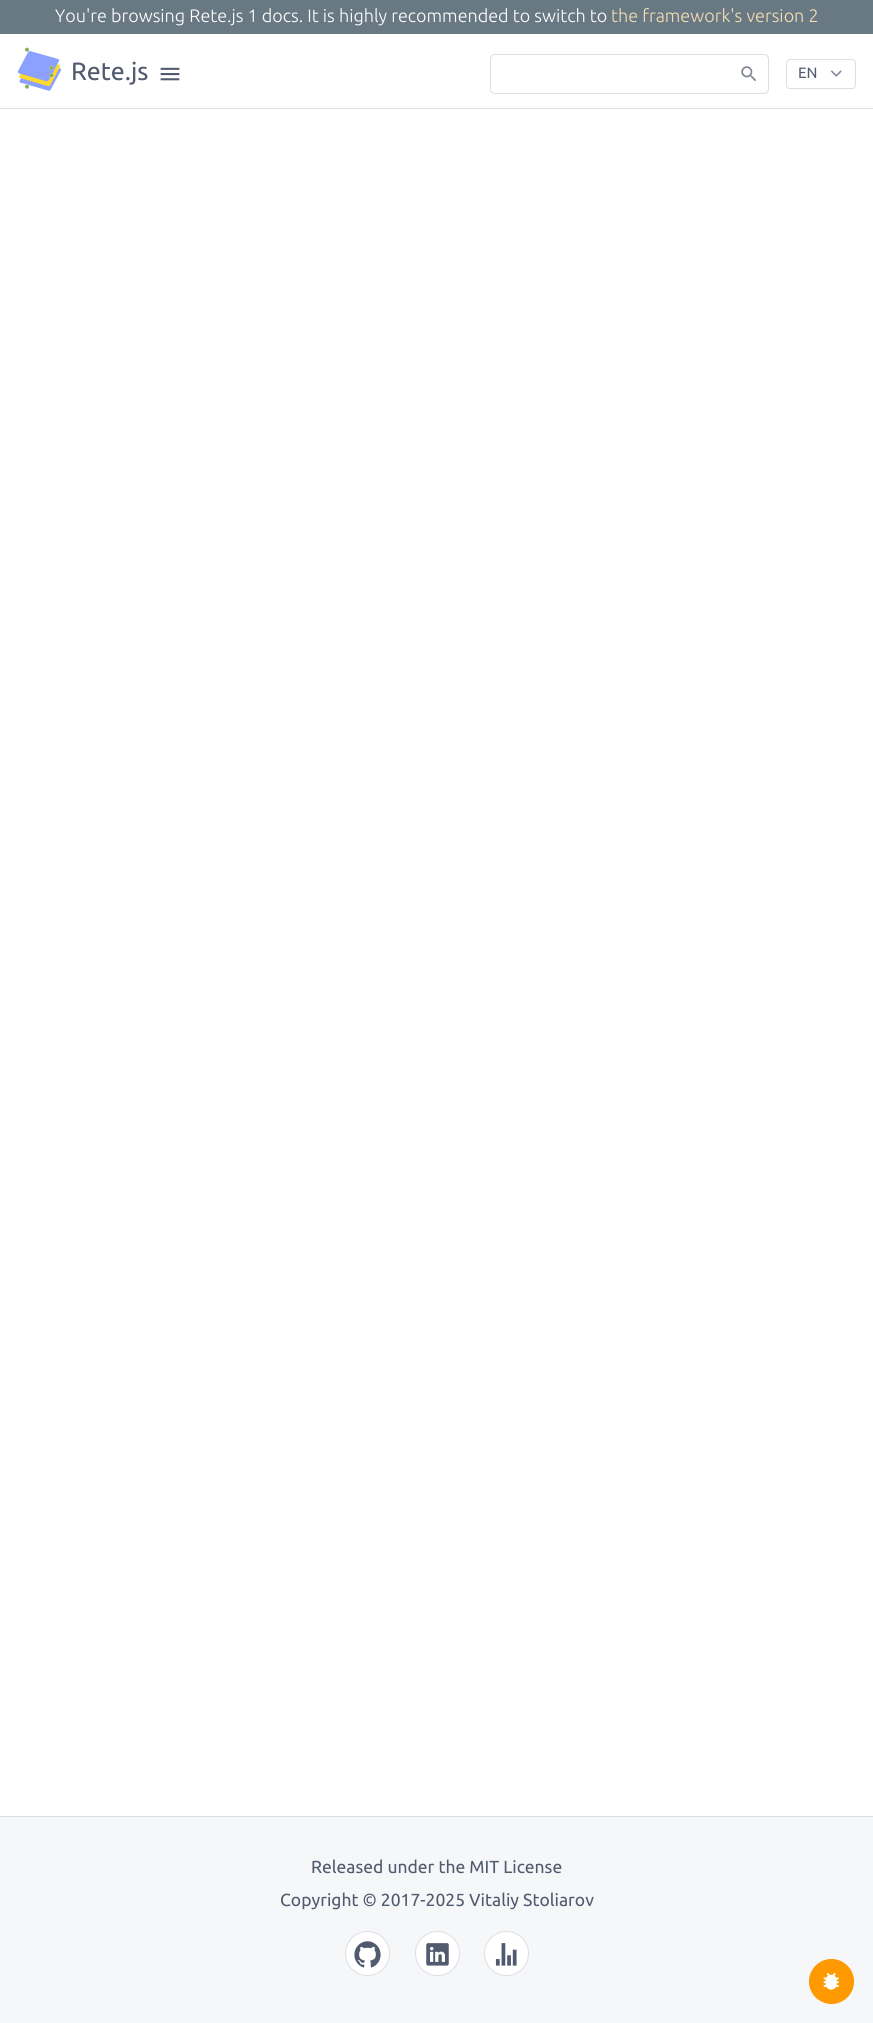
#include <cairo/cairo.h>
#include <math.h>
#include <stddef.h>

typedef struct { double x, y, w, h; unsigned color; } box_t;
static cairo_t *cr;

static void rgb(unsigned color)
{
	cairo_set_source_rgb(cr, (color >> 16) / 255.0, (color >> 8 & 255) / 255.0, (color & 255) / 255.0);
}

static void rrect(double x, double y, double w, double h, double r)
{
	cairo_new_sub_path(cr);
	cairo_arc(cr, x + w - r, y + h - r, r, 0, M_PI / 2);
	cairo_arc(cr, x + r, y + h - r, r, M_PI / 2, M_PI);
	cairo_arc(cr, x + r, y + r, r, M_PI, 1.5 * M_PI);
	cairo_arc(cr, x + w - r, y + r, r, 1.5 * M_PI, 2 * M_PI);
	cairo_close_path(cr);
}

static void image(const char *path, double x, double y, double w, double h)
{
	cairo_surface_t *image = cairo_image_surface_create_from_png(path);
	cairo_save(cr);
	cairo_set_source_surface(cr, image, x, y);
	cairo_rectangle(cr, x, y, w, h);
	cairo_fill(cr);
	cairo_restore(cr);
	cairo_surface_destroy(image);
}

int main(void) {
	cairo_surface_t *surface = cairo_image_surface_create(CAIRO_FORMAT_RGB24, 873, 2023);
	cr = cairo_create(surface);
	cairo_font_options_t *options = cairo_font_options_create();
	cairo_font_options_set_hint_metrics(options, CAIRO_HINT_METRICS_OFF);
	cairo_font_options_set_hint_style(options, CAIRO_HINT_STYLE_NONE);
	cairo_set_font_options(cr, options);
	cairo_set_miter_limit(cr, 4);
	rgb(0xffffff);
	cairo_paint(cr);
	rgb(0x697984);
	cairo_rectangle(cr, 0, 0, 873, 34);
	cairo_fill(cr);
	image("img/1.png", 17, 47, 45, 44);
	image("img/2.png", 160, 67, 20, 14);
	rrect(490.5, 54.5, 278, 39, 4.5);
	rgb(0xdcdee2);
	cairo_set_line_width(cr, 1);
	cairo_stroke(cr);
	image("img/3.png", 741, 66, 16, 16);
	rrect(786.5, 59.5, 69, 29, 3.5);
	cairo_stroke(cr);
	image("img/4.png", 830, 70, 12, 7);
	{
		static const box_t items[] = {
			{0, 108, 873, 1, 0xdcdee2},
			{0, 1817, 873, 206, 0xf5f7f9},
			{0, 1816, 873, 1, 0xdcdee2},
		};
		for (size_t i = 0; i < sizeof items / sizeof *items; i++) {
			rgb(items[i].color);
			cairo_rectangle(cr, items[i].x, items[i].y, items[i].w, items[i].h);
			cairo_fill(cr);
		}
	}
	rgb(0xffffff);
	cairo_arc(cr, 367.5, 1953.5, 22, 0, 2 * M_PI);
	cairo_fill_preserve(cr);
	rgb(0xdcdee2);
	cairo_stroke(cr);
	image("img/5.png", 354, 1941, 27, 27);
	rgb(0xffffff);
	cairo_arc(cr, 437.5, 1953.5, 22, 0, 2 * M_PI);
	cairo_fill_preserve(cr);
	rgb(0xdcdee2);
	cairo_stroke(cr);
	image("img/6.png", 426, 1943, 23, 23);
	rgb(0xffffff);
	cairo_arc(cr, 506.5, 1953.5, 22, 0, 2 * M_PI);
	cairo_fill_preserve(cr);
	rgb(0xdcdee2);
	cairo_stroke(cr);
	image("img/7.png", 495, 1943, 22, 23);
	rgb(0xff9900);
	cairo_arc(cr, 831.5, 1981.5, 22, 0, 2 * M_PI);
	cairo_fill_preserve(cr);
	cairo_stroke(cr);
	image("img/8.png", 823, 1972, 16, 18);
	cairo_select_font_face(cr, "Ubuntu Light", CAIRO_FONT_SLANT_NORMAL, CAIRO_FONT_WEIGHT_NORMAL);
	cairo_set_font_size(cr, 18);
	rgb(0xffffff);
	cairo_move_to(cr, 55, 22);
	cairo_show_text(cr, "You're browsing Rete.js 1 docs. It is highly recommended to switch to");
	rgb(0xf5deb3);
	cairo_move_to(cr, 611, 22);
	cairo_show_text(cr, "the framework's version 2");
	cairo_select_font_face(cr, "Ubuntu", CAIRO_FONT_SLANT_NORMAL, CAIRO_FONT_WEIGHT_NORMAL);
	cairo_set_font_size(cr, 25);
	rgb(0x515a6e);
	cairo_move_to(cr, 71, 80);
	cairo_show_text(cr, "Rete.js");
	cairo_set_font_size(cr, 15);
	cairo_move_to(cr, 798, 78);
	cairo_show_text(cr, "EN");
	cairo_set_font_size(cr, 17.5);
	cairo_move_to(cr, 311, 1873);
	cairo_show_text(cr, "Released under the MIT License");
	cairo_move_to(cr, 280, 1906);
	cairo_show_text(cr, "Copyright © 2017-2025 Vitaliy Stoliarov");
	cairo_surface_write_to_png(surface, "page.png");
	cairo_font_options_destroy(options);
	cairo_destroy(cr);
	cairo_surface_destroy(surface);
	return 0;
}
